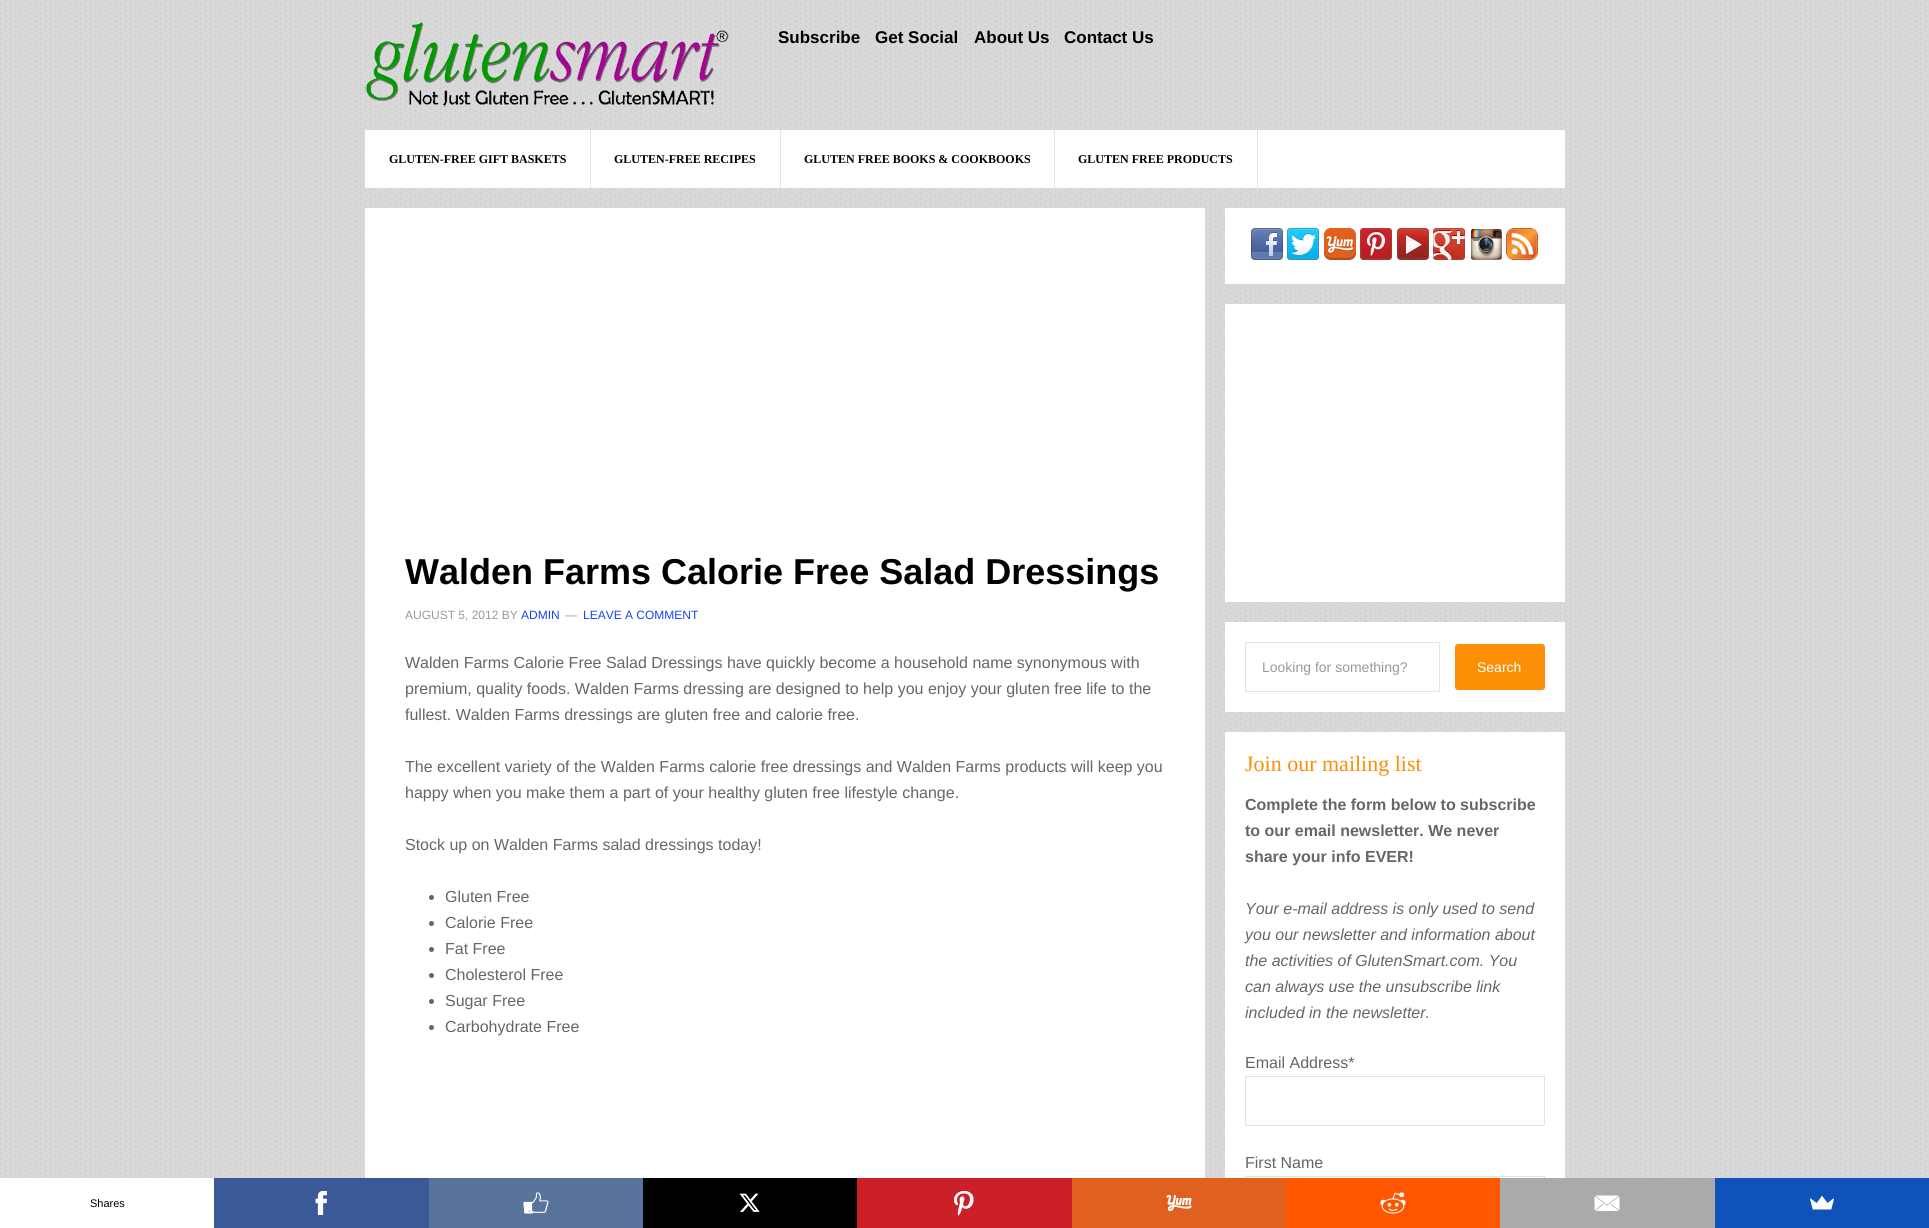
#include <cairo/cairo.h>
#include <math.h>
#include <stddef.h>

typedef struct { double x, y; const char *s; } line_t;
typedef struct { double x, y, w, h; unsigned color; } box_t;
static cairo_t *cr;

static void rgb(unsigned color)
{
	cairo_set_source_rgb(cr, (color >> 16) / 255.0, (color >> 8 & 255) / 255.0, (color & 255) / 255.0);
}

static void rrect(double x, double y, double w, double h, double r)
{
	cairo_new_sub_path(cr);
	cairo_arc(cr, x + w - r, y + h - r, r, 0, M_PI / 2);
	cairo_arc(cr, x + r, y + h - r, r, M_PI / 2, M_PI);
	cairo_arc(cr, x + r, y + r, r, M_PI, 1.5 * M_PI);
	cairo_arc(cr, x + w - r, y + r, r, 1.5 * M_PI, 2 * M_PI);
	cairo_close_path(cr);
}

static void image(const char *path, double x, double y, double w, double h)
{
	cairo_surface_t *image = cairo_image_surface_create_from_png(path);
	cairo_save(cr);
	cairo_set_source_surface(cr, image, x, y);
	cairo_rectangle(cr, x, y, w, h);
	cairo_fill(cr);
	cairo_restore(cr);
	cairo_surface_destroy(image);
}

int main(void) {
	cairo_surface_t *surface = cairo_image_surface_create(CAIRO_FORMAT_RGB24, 1929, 1228);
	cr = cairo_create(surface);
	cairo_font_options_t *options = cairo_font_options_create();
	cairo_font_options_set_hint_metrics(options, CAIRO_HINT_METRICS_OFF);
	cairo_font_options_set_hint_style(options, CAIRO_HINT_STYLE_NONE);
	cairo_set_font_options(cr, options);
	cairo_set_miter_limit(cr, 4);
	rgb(0xffffff);
	cairo_paint(cr);
	image("img/1.png", 0, 0, 1929, 1178);
	image("img/2.png", 365, 21, 364, 86);
	{
		static const box_t items[] = {
			{365, 130, 1200, 58, 0xffffff},
			{590, 130, 1, 58, 0xe3e3e3},
			{780, 130, 1, 58, 0xe3e3e3},
			{1054, 130, 1, 58, 0xe3e3e3},
			{1257, 130, 1, 58, 0xe3e3e3},
			{365, 208, 840, 970, 0xffffff},
		};
		for (size_t i = 0; i < sizeof items / sizeof *items; i++) {
			rgb(items[i].color);
			cairo_rectangle(cr, items[i].x, items[i].y, items[i].w, items[i].h);
			cairo_fill(cr);
		}
	}
	rgb(0x666666);
	cairo_arc(cr, 431.5, 897.5, 2.5, 0, 2 * M_PI);
	cairo_fill(cr);
	cairo_arc(cr, 431.5, 923.5, 2.5, 0, 2 * M_PI);
	cairo_fill(cr);
	cairo_arc(cr, 431.5, 949.5, 2.5, 0, 2 * M_PI);
	cairo_fill(cr);
	cairo_arc(cr, 431.5, 975.5, 2.5, 0, 2 * M_PI);
	cairo_fill(cr);
	cairo_arc(cr, 431.5, 1001.5, 2.5, 0, 2 * M_PI);
	cairo_fill(cr);
	cairo_arc(cr, 431.5, 1027.5, 2.5, 0, 2 * M_PI);
	cairo_fill(cr);
	rgb(0xffffff);
	cairo_rectangle(cr, 1225, 208, 340, 76);
	cairo_fill(cr);
	image("img/3.png", 1251, 228, 32, 32);
	image("img/4.png", 1287, 228, 32, 32);
	image("img/5.png", 1324, 228, 32, 32);
	image("img/6.png", 1360, 228, 32, 32);
	image("img/7.png", 1397, 228, 32, 32);
	image("img/8.png", 1433, 228, 32, 32);
	image("img/9.png", 1471, 229, 31, 31);
	image("img/10.png", 1506, 228, 32, 32);
	cairo_rectangle(cr, 1225, 304, 340, 298);
	cairo_fill(cr);
	cairo_rectangle(cr, 1225, 622, 340, 90);
	cairo_fill(cr);
	cairo_rectangle(cr, 1245.5, 642.5, 194, 49);
	rgb(0xe3e3e3);
	cairo_set_line_width(cr, 1);
	cairo_stroke(cr);
	rgb(0xfd8f06);
	rrect(1455, 644, 90, 46, 3);
	cairo_fill(cr);
	rgb(0xffffff);
	cairo_rectangle(cr, 1225, 732, 340, 446);
	cairo_fill(cr);
	cairo_rectangle(cr, 1245.5, 1076.5, 299, 49);
	rgb(0xe3e3e3);
	cairo_stroke(cr);
	cairo_rectangle(cr, 1245.5, 1176.5, 299, 49);
	cairo_stroke(cr);
	rgb(0x3b5998);
	cairo_rectangle(cr, 214, 1178, 215, 50);
	cairo_fill(cr);
	image("img/11.png", 315, 1191, 12, 24);
	rgb(0x5a739d);
	cairo_rectangle(cr, 429, 1178, 214, 50);
	cairo_fill(cr);
	image("img/12.png", 523, 1192, 26, 22);
	rgb(0x000000);
	cairo_rectangle(cr, 643, 1178, 214, 50);
	cairo_fill(cr);
	image("img/13.png", 739, 1193, 21, 19);
	rgb(0xcb2027);
	cairo_rectangle(cr, 857, 1178, 215, 50);
	cairo_fill(cr);
	image("img/14.png", 954, 1191, 20, 25);
	rgb(0xe0601f);
	cairo_rectangle(cr, 1072, 1178, 214, 50);
	cairo_fill(cr);
	image("img/15.png", 1166, 1195, 26, 16);
	rgb(0xff5700);
	cairo_rectangle(cr, 1286, 1178, 214, 50);
	cairo_fill(cr);
	image("img/16.png", 1380, 1192, 26, 22);
	rgb(0xaaaaaa);
	cairo_rectangle(cr, 1500, 1178, 215, 50);
	cairo_fill(cr);
	image("img/17.png", 1594, 1195, 26, 16);
	rgb(0x0f52ba);
	cairo_rectangle(cr, 1715, 1178, 214, 50);
	cairo_fill(cr);
	image("img/18.png", 1810, 1196, 24, 14);
	cairo_select_font_face(cr, "Liberation Sans", CAIRO_FONT_SLANT_NORMAL, CAIRO_FONT_WEIGHT_BOLD);
	cairo_set_font_size(cr, 17);
	rgb(0x000000);
	{
		static const line_t items[] = {
			{778, 43, "Subscribe"},
			{875, 43, "Get Social"},
			{974, 43, "About Us"},
			{1064, 43, "Contact Us"},
		};
		for (size_t i = 0; i < sizeof items / sizeof *items; i++) {
			cairo_move_to(cr, items[i].x, items[i].y);
			cairo_show_text(cr, items[i].s);
		}
	}
	cairo_select_font_face(cr, "Liberation Serif", CAIRO_FONT_SLANT_NORMAL, CAIRO_FONT_WEIGHT_BOLD);
	cairo_set_font_size(cr, 12);
	{
		static const line_t items[] = {
			{389, 163, "GLUTEN-FREE GIFT BASKETS"},
			{614, 163, "GLUTEN-FREE RECIPES"},
			{804, 163, "GLUTEN FREE BOOKS & COOKBOOKS"},
			{1078, 163, "GLUTEN FREE PRODUCTS"},
		};
		for (size_t i = 0; i < sizeof items / sizeof *items; i++) {
			cairo_move_to(cr, items[i].x, items[i].y);
			cairo_show_text(cr, items[i].s);
		}
	}
	cairo_select_font_face(cr, "Liberation Sans", CAIRO_FONT_SLANT_NORMAL, CAIRO_FONT_WEIGHT_BOLD);
	cairo_set_font_size(cr, 36);
	cairo_move_to(cr, 405, 584);
	cairo_show_text(cr, "Walden Farms Calorie Free Salad Dressings");
	cairo_select_font_face(cr, "Liberation Sans", CAIRO_FONT_SLANT_NORMAL, CAIRO_FONT_WEIGHT_NORMAL);
	cairo_set_font_size(cr, 12);
	rgb(0x999999);
	cairo_move_to(cr, 405, 619);
	cairo_show_text(cr, "AUGUST 5, 2012 BY");
	rgb(0x1643f7);
	cairo_move_to(cr, 521, 619);
	cairo_show_text(cr, "ADMIN");
	rgb(0x999999);
	cairo_move_to(cr, 565, 619);
	cairo_show_text(cr, "—");
	rgb(0x1643f7);
	cairo_move_to(cr, 583, 619);
	cairo_show_text(cr, "LEAVE A COMMENT");
	cairo_set_font_size(cr, 16);
	rgb(0x666666);
	{
		static const line_t items[] = {
			{405, 668, "Walden Farms Calorie Free Salad Dressings have quickly become a household name synonymous with"},
			{405, 694, "premium, quality foods. Walden Farms dressing are designed to help you enjoy your gluten free life to the"},
			{405, 720, "fullest. Walden Farms dressings are gluten free and calorie free."},
			{405, 772, "The excellent variety of the Walden Farms calorie free dressings and Walden Farms products will keep you"},
			{405, 798, "happy when you make them a part of your healthy gluten free lifestyle change."},
			{405, 850, "Stock up on Walden Farms salad dressings today!"},
			{445, 902, "Gluten Free"},
			{445, 928, "Calorie Free"},
			{445, 954, "Fat Free"},
			{445, 980, "Cholesterol Free"},
			{445, 1006, "Sugar Free"},
			{445, 1032, "Carbohydrate Free"},
		};
		for (size_t i = 0; i < sizeof items / sizeof *items; i++) {
			cairo_move_to(cr, items[i].x, items[i].y);
			cairo_show_text(cr, items[i].s);
		}
	}
	cairo_set_font_size(cr, 14);
	rgb(0x999999);
	cairo_move_to(cr, 1262, 672);
	cairo_show_text(cr, "Looking for something?");
	rgb(0xffffff);
	cairo_move_to(cr, 1477, 672);
	cairo_show_text(cr, "Search");
	cairo_select_font_face(cr, "Liberation Serif", CAIRO_FONT_SLANT_NORMAL, CAIRO_FONT_WEIGHT_NORMAL);
	cairo_set_font_size(cr, 22);
	rgb(0xfd8d05);
	cairo_move_to(cr, 1245, 771);
	cairo_show_text(cr, "Join our mailing list");
	cairo_select_font_face(cr, "Liberation Sans", CAIRO_FONT_SLANT_NORMAL, CAIRO_FONT_WEIGHT_BOLD);
	cairo_set_font_size(cr, 16);
	rgb(0x666666);
	{
		static const line_t items[] = {
			{1245, 810, "Complete the form below to subscribe"},
			{1245, 836, "to our email newsletter. We never"},
			{1245, 862, "share your info EVER!"},
		};
		for (size_t i = 0; i < sizeof items / sizeof *items; i++) {
			cairo_move_to(cr, items[i].x, items[i].y);
			cairo_show_text(cr, items[i].s);
		}
	}
	cairo_select_font_face(cr, "Liberation Sans", CAIRO_FONT_SLANT_ITALIC, CAIRO_FONT_WEIGHT_NORMAL);
	{
		static const line_t items[] = {
			{1245, 914, "Your e-mail address is only used to send"},
			{1245, 940, "you our newsletter and information about"},
			{1245, 966, "the activities of GlutenSmart.com. You"},
			{1245, 992, "can always use the unsubscribe link"},
			{1245, 1018, "included in the newsletter."},
		};
		for (size_t i = 0; i < sizeof items / sizeof *items; i++) {
			cairo_move_to(cr, items[i].x, items[i].y);
			cairo_show_text(cr, items[i].s);
		}
	}
	cairo_select_font_face(cr, "Liberation Sans", CAIRO_FONT_SLANT_NORMAL, CAIRO_FONT_WEIGHT_NORMAL);
	cairo_move_to(cr, 1245, 1068);
	cairo_show_text(cr, "Email Address*");
	cairo_move_to(cr, 1245, 1168);
	cairo_show_text(cr, "First Name");
	cairo_set_font_size(cr, 11);
	rgb(0x000000);
	cairo_move_to(cr, 90, 1207);
	cairo_show_text(cr, "Shares");
	cairo_surface_write_to_png(surface, "page.png");
	cairo_font_options_destroy(options);
	cairo_destroy(cr);
	cairo_surface_destroy(surface);
	return 0;
}
